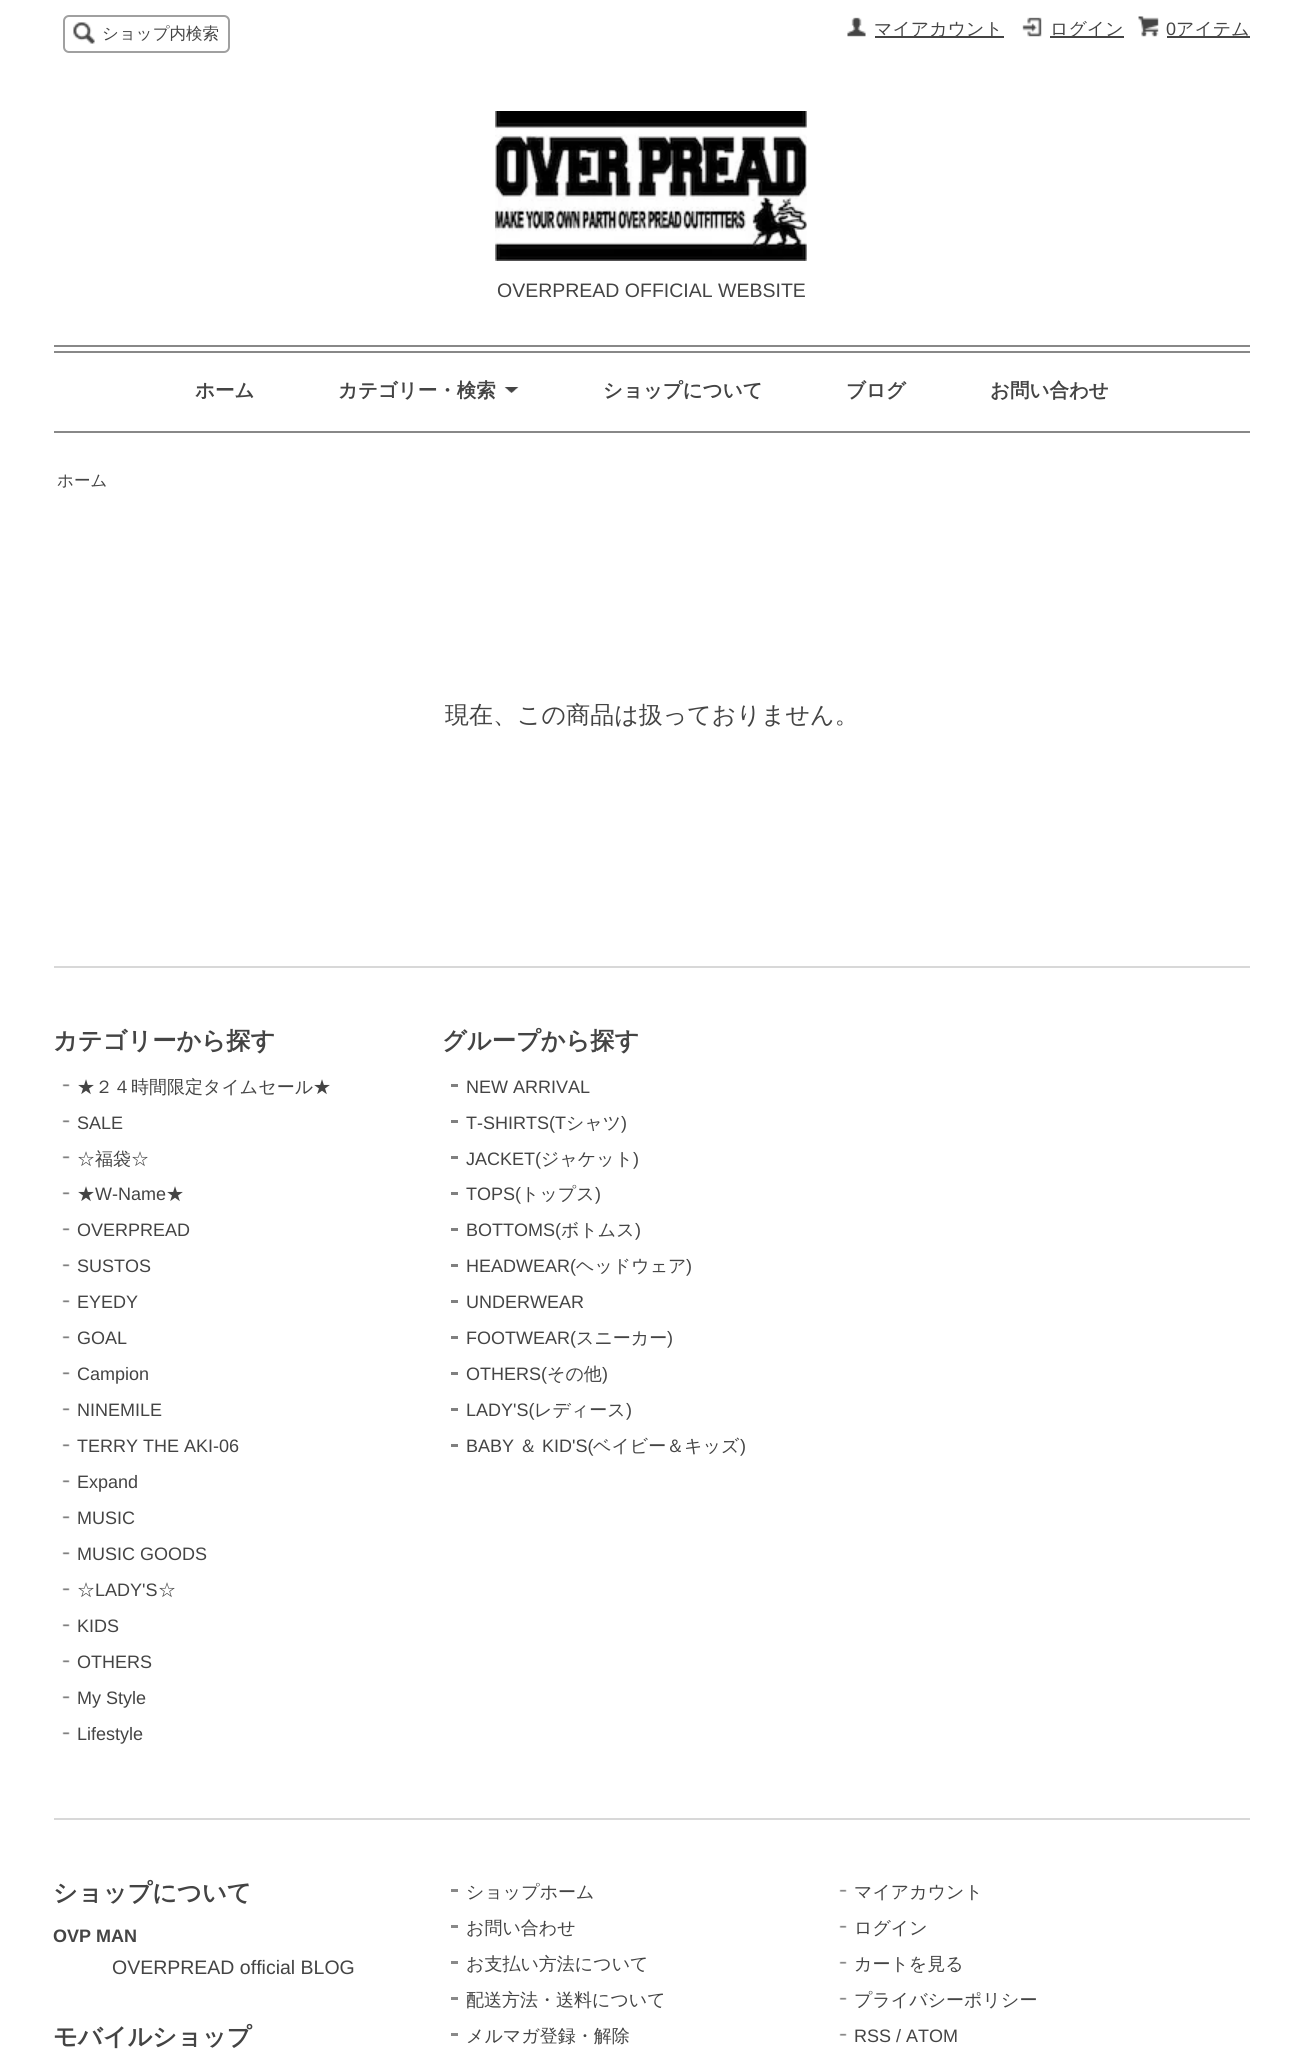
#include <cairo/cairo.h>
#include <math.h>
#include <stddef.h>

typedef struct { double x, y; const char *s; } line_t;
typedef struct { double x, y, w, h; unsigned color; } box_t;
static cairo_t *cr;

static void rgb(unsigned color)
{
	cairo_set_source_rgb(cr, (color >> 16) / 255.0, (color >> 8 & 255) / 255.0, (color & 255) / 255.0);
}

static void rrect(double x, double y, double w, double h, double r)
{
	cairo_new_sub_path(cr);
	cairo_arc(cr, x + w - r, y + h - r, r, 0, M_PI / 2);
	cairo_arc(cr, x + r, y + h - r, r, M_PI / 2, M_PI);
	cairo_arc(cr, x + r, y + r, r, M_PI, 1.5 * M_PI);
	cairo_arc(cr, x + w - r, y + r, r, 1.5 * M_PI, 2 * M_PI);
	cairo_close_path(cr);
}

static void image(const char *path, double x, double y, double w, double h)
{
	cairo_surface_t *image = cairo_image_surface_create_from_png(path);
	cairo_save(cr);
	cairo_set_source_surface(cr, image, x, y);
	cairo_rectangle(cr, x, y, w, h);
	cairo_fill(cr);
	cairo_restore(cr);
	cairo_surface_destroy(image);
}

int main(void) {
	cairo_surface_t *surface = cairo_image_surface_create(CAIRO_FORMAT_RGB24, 1303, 2056);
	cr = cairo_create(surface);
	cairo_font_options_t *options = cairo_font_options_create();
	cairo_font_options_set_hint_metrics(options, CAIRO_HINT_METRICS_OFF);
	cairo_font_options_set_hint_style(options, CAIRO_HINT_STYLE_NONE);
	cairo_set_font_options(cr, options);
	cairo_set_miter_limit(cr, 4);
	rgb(0xffffff);
	cairo_paint(cr);
	rrect(64, 16, 165, 36, 5);
	rgb(0xa0a0a0);
	cairo_stroke(cr);
	image("img/1.png", 73, 22, 22, 22);
	image("img/2.png", 847, 17, 19, 20);
	rgb(0x444444);
	cairo_rectangle(cr, 875, 36, 129, 2);
	cairo_fill(cr);
	image("img/3.png", 1022, 17, 20, 20);
	cairo_rectangle(cr, 1050, 36, 74, 2);
	cairo_fill(cr);
	image("img/4.png", 1138, 16, 21, 21);
	cairo_rectangle(cr, 1167, 36, 83, 2);
	cairo_fill(cr);
	rgb(0x888888);
	cairo_rectangle(cr, 54, 345, 1196, 2);
	cairo_fill(cr);
	image("img/5.png", 495, 111, 312, 150);
	cairo_rectangle(cr, 54, 351, 1196, 2);
	cairo_fill(cr);
	cairo_rectangle(cr, 54, 431, 1196, 2);
	cairo_fill(cr);
	image("img/6.png", 504, 387, 15, 6);
	rgb(0xd8d8d8);
	cairo_rectangle(cr, 54, 966, 1196, 2);
	cairo_fill(cr);
	image("img/7.png", 62, 1084, 8, 3);
	image("img/7.png", 62, 1120, 8, 3);
	image("img/7.png", 62, 1156, 8, 3);
	image("img/7.png", 62, 1192, 8, 3);
	image("img/7.png", 62, 1228, 8, 3);
	image("img/7.png", 62, 1264, 8, 3);
	image("img/7.png", 62, 1300, 8, 3);
	image("img/7.png", 62, 1336, 8, 3);
	image("img/7.png", 62, 1372, 8, 3);
	image("img/7.png", 62, 1408, 8, 3);
	image("img/7.png", 62, 1444, 8, 3);
	image("img/7.png", 62, 1480, 8, 3);
	image("img/7.png", 62, 1516, 8, 3);
	image("img/7.png", 62, 1552, 8, 3);
	image("img/7.png", 62, 1588, 8, 3);
	image("img/7.png", 62, 1624, 8, 3);
	image("img/7.png", 62, 1660, 8, 3);
	image("img/7.png", 62, 1696, 8, 3);
	image("img/7.png", 62, 1732, 8, 3);
	{
		static const box_t items[] = {
			{451, 1084, 7, 3, 0x808080},
			{451, 1120, 7, 3, 0x808080},
			{451, 1156, 7, 3, 0x808080},
			{451, 1192, 7, 3, 0x808080},
			{451, 1228, 7, 3, 0x808080},
			{451, 1264, 7, 3, 0x808080},
			{451, 1300, 7, 3, 0x808080},
			{451, 1336, 7, 3, 0x808080},
			{451, 1372, 7, 3, 0x808080},
			{451, 1408, 7, 3, 0x808080},
			{451, 1444, 7, 3, 0x808080},
			{54, 1818, 1196, 2, 0xd8d8d8},
			{451, 1889, 7, 3, 0x898989},
			{451, 1925, 7, 3, 0x898989},
			{451, 1961, 7, 3, 0x898989},
			{451, 1997, 7, 3, 0x898989},
			{451, 2033, 7, 3, 0x898989},
		};
		for (size_t i = 0; i < sizeof items / sizeof *items; i++) {
			rgb(items[i].color);
			cairo_rectangle(cr, items[i].x, items[i].y, items[i].w, items[i].h);
			cairo_fill(cr);
		}
	}
	image("img/8.png", 839, 1889, 8, 3);
	image("img/8.png", 839, 1925, 8, 3);
	image("img/8.png", 839, 1961, 8, 3);
	image("img/8.png", 839, 1997, 8, 3);
	image("img/8.png", 839, 2033, 8, 3);
	cairo_select_font_face(cr, "WenQuanYi Zen Hei Medium", CAIRO_FONT_SLANT_NORMAL, CAIRO_FONT_WEIGHT_NORMAL);
	cairo_set_font_size(cr, 16.5);
	rgb(0x444444);
	cairo_move_to(cr, 102, 39);
	cairo_show_text(cr, "ショップ内検索");
	cairo_set_font_size(cr, 18);
	cairo_move_to(cr, 874, 35);
	cairo_show_text(cr, "マイアカウント");
	cairo_move_to(cr, 1050, 35);
	cairo_show_text(cr, "ログイン");
	cairo_select_font_face(cr, "Liberation Sans", CAIRO_FONT_SLANT_NORMAL, CAIRO_FONT_WEIGHT_NORMAL);
	cairo_move_to(cr, 1166, 35);
	cairo_show_text(cr, "0");
	cairo_select_font_face(cr, "WenQuanYi Zen Hei Medium", CAIRO_FONT_SLANT_NORMAL, CAIRO_FONT_WEIGHT_NORMAL);
	cairo_move_to(cr, 1176, 35);
	cairo_show_text(cr, "アイテム");
	cairo_select_font_face(cr, "Liberation Sans", CAIRO_FONT_SLANT_NORMAL, CAIRO_FONT_WEIGHT_NORMAL);
	cairo_set_font_size(cr, 19.5);
	cairo_move_to(cr, 497, 297);
	cairo_show_text(cr, "OVERPREAD OFFICIAL WEBSITE");
	cairo_select_font_face(cr, "WenQuanYi Zen Hei", CAIRO_FONT_SLANT_NORMAL, CAIRO_FONT_WEIGHT_BOLD);
	{
		static const line_t items[] = {
			{195, 397, "ホーム"},
			{338, 397, "カテゴリー・検索"},
			{603, 397, "ショップについて"},
			{846, 397, "ブログ"},
			{990, 397, "お問い合わせ"},
		};
		for (size_t i = 0; i < sizeof items / sizeof *items; i++) {
			cairo_move_to(cr, items[i].x, items[i].y);
			cairo_show_text(cr, items[i].s);
		}
	}
	cairo_select_font_face(cr, "WenQuanYi Zen Hei Medium", CAIRO_FONT_SLANT_NORMAL, CAIRO_FONT_WEIGHT_NORMAL);
	cairo_set_font_size(cr, 16.5);
	cairo_move_to(cr, 57, 486);
	cairo_show_text(cr, "ホーム");
	cairo_set_font_size(cr, 24);
	cairo_move_to(cr, 445, 723);
	cairo_show_text(cr, "現在、この商品は扱っておりません。");
	cairo_select_font_face(cr, "WenQuanYi Zen Hei", CAIRO_FONT_SLANT_NORMAL, CAIRO_FONT_WEIGHT_BOLD);
	cairo_set_font_size(cr, 24.25);
	cairo_move_to(cr, 53, 1049);
	cairo_show_text(cr, "カテゴリーから探す");
	cairo_select_font_face(cr, "WenQuanYi Zen Hei Medium", CAIRO_FONT_SLANT_NORMAL, CAIRO_FONT_WEIGHT_NORMAL);
	cairo_set_font_size(cr, 18);
	cairo_move_to(cr, 77, 1093);
	cairo_show_text(cr, "★２４時間限定タイムセール★");
	cairo_select_font_face(cr, "Liberation Sans", CAIRO_FONT_SLANT_NORMAL, CAIRO_FONT_WEIGHT_NORMAL);
	cairo_move_to(cr, 77, 1129);
	cairo_show_text(cr, "SALE");
	cairo_select_font_face(cr, "WenQuanYi Zen Hei Medium", CAIRO_FONT_SLANT_NORMAL, CAIRO_FONT_WEIGHT_NORMAL);
	cairo_move_to(cr, 77, 1165);
	cairo_show_text(cr, "☆福袋☆");
	cairo_move_to(cr, 77, 1200);
	cairo_show_text(cr, "★");
	cairo_select_font_face(cr, "Liberation Sans", CAIRO_FONT_SLANT_NORMAL, CAIRO_FONT_WEIGHT_NORMAL);
	cairo_move_to(cr, 95, 1200);
	cairo_show_text(cr, "W-Name");
	cairo_select_font_face(cr, "WenQuanYi Zen Hei Medium", CAIRO_FONT_SLANT_NORMAL, CAIRO_FONT_WEIGHT_NORMAL);
	cairo_move_to(cr, 166, 1200);
	cairo_show_text(cr, "★");
	cairo_select_font_face(cr, "Liberation Sans", CAIRO_FONT_SLANT_NORMAL, CAIRO_FONT_WEIGHT_NORMAL);
	{
		static const line_t items[] = {
			{77, 1236, "OVERPREAD"},
			{77, 1272, "SUSTOS"},
			{77, 1308, "EYEDY"},
			{77, 1344, "GOAL"},
			{77, 1380, "Campion"},
			{77, 1416, "NINEMILE"},
			{77, 1452, "TERRY THE AKI-06"},
			{77, 1488, "Expand"},
			{77, 1524, "MUSIC"},
			{77, 1560, "MUSIC GOODS"},
		};
		for (size_t i = 0; i < sizeof items / sizeof *items; i++) {
			cairo_move_to(cr, items[i].x, items[i].y);
			cairo_show_text(cr, items[i].s);
		}
	}
	cairo_select_font_face(cr, "WenQuanYi Zen Hei Medium", CAIRO_FONT_SLANT_NORMAL, CAIRO_FONT_WEIGHT_NORMAL);
	cairo_move_to(cr, 77, 1596);
	cairo_show_text(cr, "☆");
	cairo_select_font_face(cr, "Liberation Sans", CAIRO_FONT_SLANT_NORMAL, CAIRO_FONT_WEIGHT_NORMAL);
	cairo_move_to(cr, 95, 1596);
	cairo_show_text(cr, "LADY'S");
	cairo_select_font_face(cr, "WenQuanYi Zen Hei Medium", CAIRO_FONT_SLANT_NORMAL, CAIRO_FONT_WEIGHT_NORMAL);
	cairo_move_to(cr, 158, 1596);
	cairo_show_text(cr, "☆");
	cairo_select_font_face(cr, "Liberation Sans", CAIRO_FONT_SLANT_NORMAL, CAIRO_FONT_WEIGHT_NORMAL);
	{
		static const line_t items[] = {
			{77, 1632, "KIDS"},
			{77, 1668, "OTHERS"},
			{77, 1704, "My Style"},
			{77, 1740, "Lifestyle"},
		};
		for (size_t i = 0; i < sizeof items / sizeof *items; i++) {
			cairo_move_to(cr, items[i].x, items[i].y);
			cairo_show_text(cr, items[i].s);
		}
	}
	cairo_select_font_face(cr, "WenQuanYi Zen Hei", CAIRO_FONT_SLANT_NORMAL, CAIRO_FONT_WEIGHT_BOLD);
	cairo_set_font_size(cr, 24.25);
	cairo_move_to(cr, 442, 1049);
	cairo_show_text(cr, "グループから探す");
	cairo_select_font_face(cr, "Liberation Sans", CAIRO_FONT_SLANT_NORMAL, CAIRO_FONT_WEIGHT_NORMAL);
	cairo_set_font_size(cr, 18);
	cairo_move_to(cr, 466, 1093);
	cairo_show_text(cr, "NEW ARRIVAL");
	cairo_move_to(cr, 466, 1129);
	cairo_show_text(cr, "T-SHIRTS(T");
	cairo_select_font_face(cr, "WenQuanYi Zen Hei Medium", CAIRO_FONT_SLANT_NORMAL, CAIRO_FONT_WEIGHT_NORMAL);
	cairo_move_to(cr, 566, 1129);
	cairo_show_text(cr, "シャツ");
	cairo_select_font_face(cr, "Liberation Sans", CAIRO_FONT_SLANT_NORMAL, CAIRO_FONT_WEIGHT_NORMAL);
	cairo_move_to(cr, 621, 1129);
	cairo_show_text(cr, ")");
	cairo_move_to(cr, 466, 1165);
	cairo_show_text(cr, "JACKET(");
	cairo_select_font_face(cr, "WenQuanYi Zen Hei Medium", CAIRO_FONT_SLANT_NORMAL, CAIRO_FONT_WEIGHT_NORMAL);
	cairo_move_to(cr, 541, 1165);
	cairo_show_text(cr, "ジャケット");
	cairo_select_font_face(cr, "Liberation Sans", CAIRO_FONT_SLANT_NORMAL, CAIRO_FONT_WEIGHT_NORMAL);
	cairo_move_to(cr, 633, 1165);
	cairo_show_text(cr, ")");
	cairo_move_to(cr, 466, 1200);
	cairo_show_text(cr, "TOPS(");
	cairo_select_font_face(cr, "WenQuanYi Zen Hei Medium", CAIRO_FONT_SLANT_NORMAL, CAIRO_FONT_WEIGHT_NORMAL);
	cairo_move_to(cr, 521, 1200);
	cairo_show_text(cr, "トップス");
	cairo_select_font_face(cr, "Liberation Sans", CAIRO_FONT_SLANT_NORMAL, CAIRO_FONT_WEIGHT_NORMAL);
	cairo_move_to(cr, 595, 1200);
	cairo_show_text(cr, ")");
	cairo_move_to(cr, 466, 1236);
	cairo_show_text(cr, "BOTTOMS(");
	cairo_select_font_face(cr, "WenQuanYi Zen Hei Medium", CAIRO_FONT_SLANT_NORMAL, CAIRO_FONT_WEIGHT_NORMAL);
	cairo_move_to(cr, 561, 1236);
	cairo_show_text(cr, "ボトムス");
	cairo_select_font_face(cr, "Liberation Sans", CAIRO_FONT_SLANT_NORMAL, CAIRO_FONT_WEIGHT_NORMAL);
	cairo_move_to(cr, 635, 1236);
	cairo_show_text(cr, ")");
	cairo_move_to(cr, 466, 1272);
	cairo_show_text(cr, "HEADWEAR(");
	cairo_select_font_face(cr, "WenQuanYi Zen Hei Medium", CAIRO_FONT_SLANT_NORMAL, CAIRO_FONT_WEIGHT_NORMAL);
	cairo_move_to(cr, 576, 1272);
	cairo_show_text(cr, "ヘッドウェア");
	cairo_select_font_face(cr, "Liberation Sans", CAIRO_FONT_SLANT_NORMAL, CAIRO_FONT_WEIGHT_NORMAL);
	{
		static const line_t items[] = {
			{686, 1272, ")"},
			{466, 1308, "UNDERWEAR"},
			{466, 1344, "FOOTWEAR("},
		};
		for (size_t i = 0; i < sizeof items / sizeof *items; i++) {
			cairo_move_to(cr, items[i].x, items[i].y);
			cairo_show_text(cr, items[i].s);
		}
	}
	cairo_select_font_face(cr, "WenQuanYi Zen Hei Medium", CAIRO_FONT_SLANT_NORMAL, CAIRO_FONT_WEIGHT_NORMAL);
	cairo_move_to(cr, 576, 1344);
	cairo_show_text(cr, "スニーカー");
	cairo_select_font_face(cr, "Liberation Sans", CAIRO_FONT_SLANT_NORMAL, CAIRO_FONT_WEIGHT_NORMAL);
	cairo_move_to(cr, 667, 1344);
	cairo_show_text(cr, ")");
	cairo_move_to(cr, 466, 1380);
	cairo_show_text(cr, "OTHERS(");
	cairo_select_font_face(cr, "WenQuanYi Zen Hei Medium", CAIRO_FONT_SLANT_NORMAL, CAIRO_FONT_WEIGHT_NORMAL);
	cairo_move_to(cr, 547, 1380);
	cairo_show_text(cr, "その他");
	cairo_select_font_face(cr, "Liberation Sans", CAIRO_FONT_SLANT_NORMAL, CAIRO_FONT_WEIGHT_NORMAL);
	cairo_move_to(cr, 602, 1380);
	cairo_show_text(cr, ")");
	cairo_move_to(cr, 466, 1416);
	cairo_show_text(cr, "LADY'S(");
	cairo_select_font_face(cr, "WenQuanYi Zen Hei Medium", CAIRO_FONT_SLANT_NORMAL, CAIRO_FONT_WEIGHT_NORMAL);
	cairo_move_to(cr, 534, 1416);
	cairo_show_text(cr, "レディース");
	cairo_select_font_face(cr, "Liberation Sans", CAIRO_FONT_SLANT_NORMAL, CAIRO_FONT_WEIGHT_NORMAL);
	cairo_move_to(cr, 626, 1416);
	cairo_show_text(cr, ")");
	cairo_move_to(cr, 466, 1452);
	cairo_show_text(cr, "BABY");
	cairo_select_font_face(cr, "WenQuanYi Zen Hei Medium", CAIRO_FONT_SLANT_NORMAL, CAIRO_FONT_WEIGHT_NORMAL);
	cairo_move_to(cr, 519, 1452);
	cairo_show_text(cr, "＆");
	cairo_select_font_face(cr, "Liberation Sans", CAIRO_FONT_SLANT_NORMAL, CAIRO_FONT_WEIGHT_NORMAL);
	cairo_move_to(cr, 542, 1452);
	cairo_show_text(cr, "KID'S(");
	cairo_select_font_face(cr, "WenQuanYi Zen Hei Medium", CAIRO_FONT_SLANT_NORMAL, CAIRO_FONT_WEIGHT_NORMAL);
	cairo_move_to(cr, 593, 1452);
	cairo_show_text(cr, "ベイビー＆キッズ");
	cairo_select_font_face(cr, "Liberation Sans", CAIRO_FONT_SLANT_NORMAL, CAIRO_FONT_WEIGHT_NORMAL);
	cairo_move_to(cr, 740, 1452);
	cairo_show_text(cr, ")");
	cairo_select_font_face(cr, "WenQuanYi Zen Hei", CAIRO_FONT_SLANT_NORMAL, CAIRO_FONT_WEIGHT_BOLD);
	cairo_set_font_size(cr, 24.25);
	cairo_move_to(cr, 53, 1901);
	cairo_show_text(cr, "ショップについて");
	cairo_select_font_face(cr, "Liberation Sans", CAIRO_FONT_SLANT_NORMAL, CAIRO_FONT_WEIGHT_BOLD);
	cairo_set_font_size(cr, 18);
	cairo_move_to(cr, 53, 1942);
	cairo_show_text(cr, "OVP MAN");
	cairo_select_font_face(cr, "Liberation Sans", CAIRO_FONT_SLANT_NORMAL, CAIRO_FONT_WEIGHT_NORMAL);
	cairo_set_font_size(cr, 19.5);
	cairo_move_to(cr, 112, 1974);
	cairo_show_text(cr, "OVERPREAD official BLOG");
	cairo_select_font_face(cr, "WenQuanYi Zen Hei Medium", CAIRO_FONT_SLANT_NORMAL, CAIRO_FONT_WEIGHT_NORMAL);
	cairo_set_font_size(cr, 18);
	{
		static const line_t items[] = {
			{466, 1898, "ショップホーム"},
			{466, 1934, "お問い合わせ"},
			{466, 1970, "お支払い方法について"},
			{466, 2006, "配送方法・送料について"},
			{466, 2042, "メルマガ登録・解除"},
			{854, 1898, "マイアカウント"},
			{854, 1934, "ログイン"},
			{854, 1970, "カートを見る"},
			{854, 2006, "プライバシーポリシー"},
		};
		for (size_t i = 0; i < sizeof items / sizeof *items; i++) {
			cairo_move_to(cr, items[i].x, items[i].y);
			cairo_show_text(cr, items[i].s);
		}
	}
	cairo_select_font_face(cr, "Liberation Sans", CAIRO_FONT_SLANT_NORMAL, CAIRO_FONT_WEIGHT_NORMAL);
	cairo_move_to(cr, 854, 2042);
	cairo_show_text(cr, "RSS / ATOM");
	cairo_select_font_face(cr, "WenQuanYi Zen Hei", CAIRO_FONT_SLANT_NORMAL, CAIRO_FONT_WEIGHT_BOLD);
	cairo_set_font_size(cr, 24.25);
	cairo_move_to(cr, 53, 2045);
	cairo_show_text(cr, "モバイルショップ");
	cairo_surface_write_to_png(surface, "page.png");
	cairo_font_options_destroy(options);
	cairo_destroy(cr);
	cairo_surface_destroy(surface);
	return 0;
}
